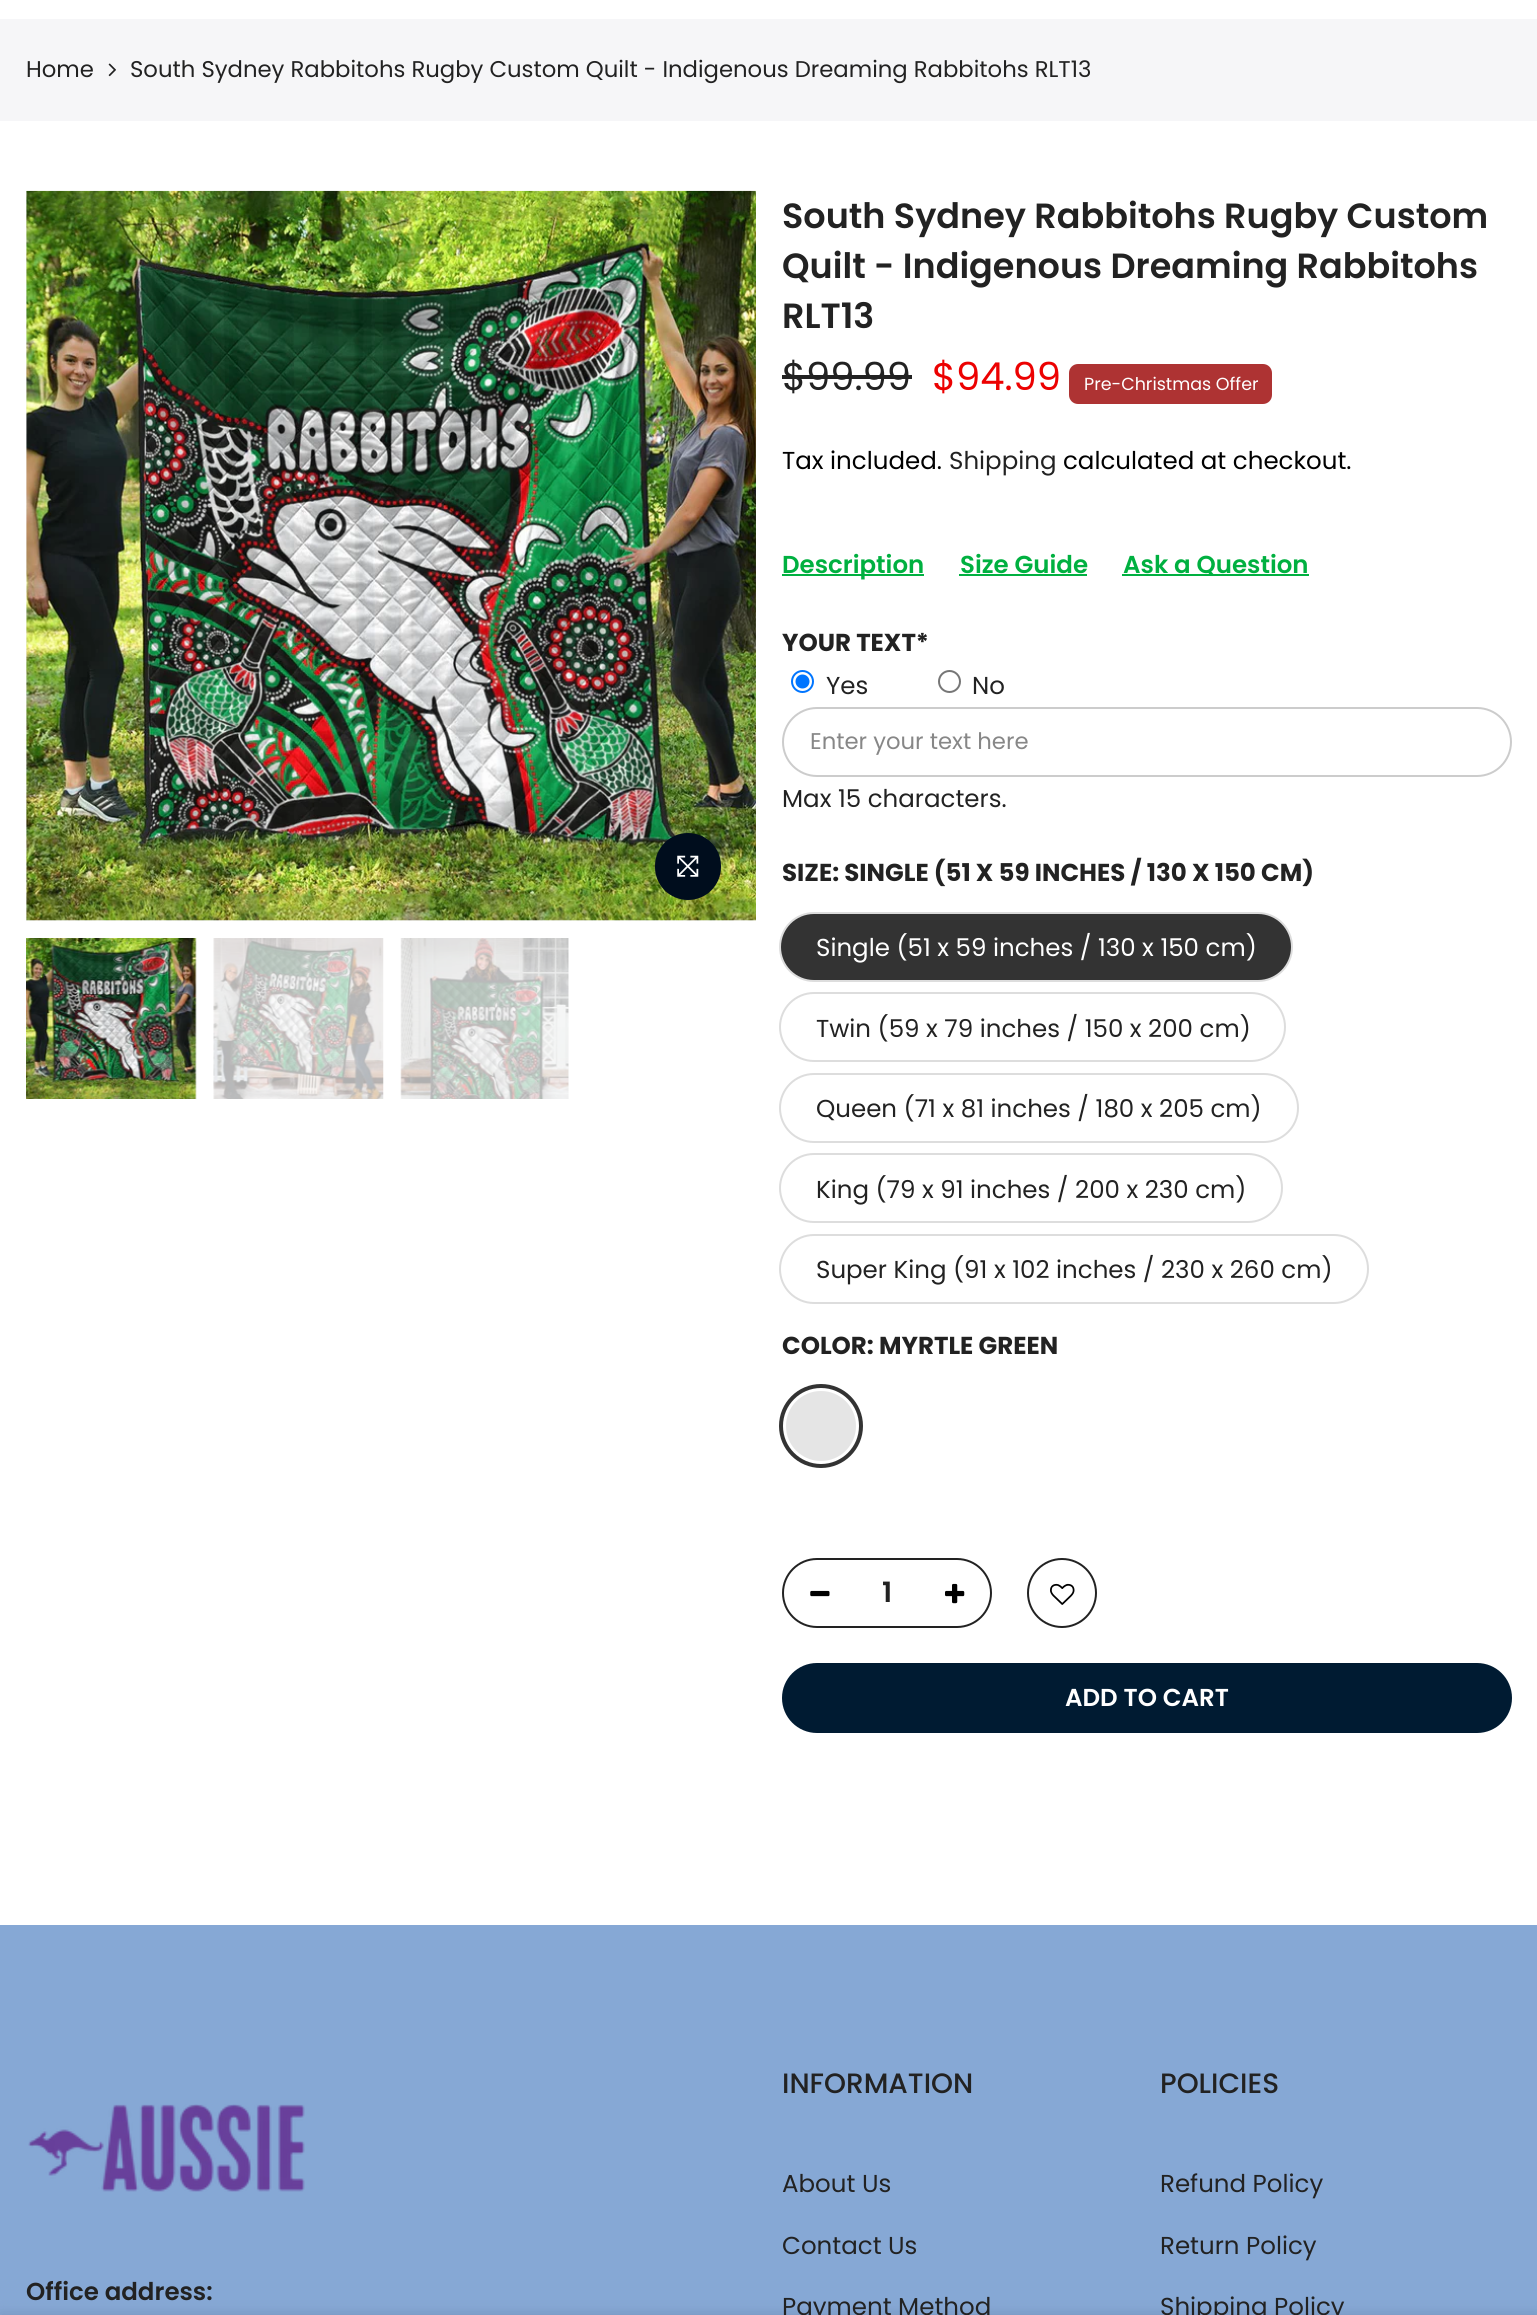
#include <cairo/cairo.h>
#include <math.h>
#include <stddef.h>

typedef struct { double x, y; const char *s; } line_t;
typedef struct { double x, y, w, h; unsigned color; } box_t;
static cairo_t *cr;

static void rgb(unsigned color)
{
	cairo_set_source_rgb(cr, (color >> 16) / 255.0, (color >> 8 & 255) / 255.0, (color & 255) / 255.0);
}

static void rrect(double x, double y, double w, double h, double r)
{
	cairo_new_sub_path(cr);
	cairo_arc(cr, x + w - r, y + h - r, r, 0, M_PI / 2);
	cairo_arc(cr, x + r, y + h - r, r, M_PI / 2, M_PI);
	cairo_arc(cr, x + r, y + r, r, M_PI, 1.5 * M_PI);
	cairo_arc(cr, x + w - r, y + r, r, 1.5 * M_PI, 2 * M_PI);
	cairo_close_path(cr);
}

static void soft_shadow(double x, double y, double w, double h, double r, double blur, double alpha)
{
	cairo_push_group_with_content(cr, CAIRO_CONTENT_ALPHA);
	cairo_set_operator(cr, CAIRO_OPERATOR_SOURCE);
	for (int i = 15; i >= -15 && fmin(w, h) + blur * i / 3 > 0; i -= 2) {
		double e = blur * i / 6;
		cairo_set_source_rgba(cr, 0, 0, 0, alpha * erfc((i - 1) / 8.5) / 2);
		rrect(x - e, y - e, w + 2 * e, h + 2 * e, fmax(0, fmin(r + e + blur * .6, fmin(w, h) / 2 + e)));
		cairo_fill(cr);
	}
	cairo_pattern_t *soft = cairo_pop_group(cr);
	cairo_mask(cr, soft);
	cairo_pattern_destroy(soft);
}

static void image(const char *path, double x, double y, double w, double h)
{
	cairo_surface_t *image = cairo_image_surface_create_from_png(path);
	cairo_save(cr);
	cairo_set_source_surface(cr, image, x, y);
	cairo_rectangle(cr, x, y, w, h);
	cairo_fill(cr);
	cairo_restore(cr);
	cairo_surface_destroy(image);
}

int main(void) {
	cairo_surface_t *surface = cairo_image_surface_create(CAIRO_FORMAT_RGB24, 1537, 2315);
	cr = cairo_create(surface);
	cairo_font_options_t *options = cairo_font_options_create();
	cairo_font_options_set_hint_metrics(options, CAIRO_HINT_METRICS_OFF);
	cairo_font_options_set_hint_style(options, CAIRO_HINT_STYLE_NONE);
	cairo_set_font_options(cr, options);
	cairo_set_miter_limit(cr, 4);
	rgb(0xffffff);
	cairo_paint(cr);
	rgb(0xf6f6f8);
	cairo_rectangle(cr, 0, 19, 1537, 102);
	cairo_fill(cr);
	image("img/1.png", 108, 63, 8, 14);
	rgb(0xf5f5f5);
	cairo_rectangle(cr, 26, 191, 730, 730);
	cairo_fill(cr);
	image("img/2.png", 26, 190, 730, 731);
	rgb(0x000d1d);
	rrect(655, 833, 66, 67, 33);
	cairo_fill(cr);
	image("img/3.png", 677, 855, 22, 22);
	rgb(0xf5f5f5);
	cairo_rectangle(cr, 195, 938, 1, 161);
	cairo_fill(cr);
	image("img/4.png", 26, 938, 171, 161);
	rgb(0xfcfcfc);
	cairo_rectangle(cr, 214, 938, 169, 161);
	cairo_fill(cr);
	image("img/5.png", 213, 938, 171, 161);
	cairo_rectangle(cr, 401, 938, 168, 161);
	cairo_fill(cr);
	image("img/6.png", 400, 938, 169, 161);
	rgb(0x222222);
	cairo_rectangle(cr, 782, 375, 130, 4);
	cairo_fill(cr);
	rgb(0xae3333);
	rrect(1069, 364, 203, 40, 9);
	cairo_fill(cr);
	{
		static const box_t items[] = {
			{782, 574, 142, 2, 0x00b040},
			{959, 574, 128, 2, 0x00b040},
			{1122, 574, 187, 2, 0x00b040},
		};
		for (size_t i = 0; i < sizeof items / sizeof *items; i++) {
			rgb(items[i].color);
			cairo_rectangle(cr, items[i].x, items[i].y, items[i].w, items[i].h);
			cairo_fill(cr);
		}
	}
	cairo_arc(cr, 802.5, 681.5, 10.5, 0, 2 * M_PI);
	rgb(0x0075ff);
	cairo_stroke(cr);
	cairo_arc(cr, 802.5, 681.5, 7, 0, 2 * M_PI);
	cairo_fill(cr);
	cairo_arc(cr, 949.5, 681.5, 10.5, 0, 2 * M_PI);
	rgb(0x767676);
	cairo_stroke(cr);
	rrect(783, 708, 728, 68, 34);
	rgb(0xcccccc);
	cairo_stroke(cr);
	rgb(0x333333);
	rrect(780, 913, 512, 68, 34);
	cairo_fill_preserve(cr);
	rgb(0xdddddd);
	cairo_stroke(cr);
	rrect(780, 993, 505, 68, 34);
	cairo_stroke(cr);
	rrect(780, 1074, 518, 68, 34);
	cairo_stroke(cr);
	rrect(780, 1154, 502, 68, 34);
	cairo_stroke(cr);
	rrect(780, 1235, 588, 68, 34);
	cairo_stroke(cr);
	cairo_arc(cr, 821, 1426, 40, 0, 2 * M_PI);
	rgb(0x333333);
	cairo_set_line_width(cr, 4);
	cairo_stroke(cr);
	rgb(0xe5e5e5);
	cairo_arc(cr, 821, 1426, 35, 0, 2 * M_PI);
	cairo_fill(cr);
	rrect(783, 1559, 208, 68, 34);
	rgb(0x222222);
	cairo_set_line_width(cr, 2);
	cairo_stroke(cr);
	image("img/7.png", 810, 1590, 20, 7);
	image("img/8.png", 945, 1583, 20, 21);
	cairo_arc(cr, 1062, 1593, 34, 0, 2 * M_PI);
	cairo_stroke(cr);
	image("img/9.png", 1050, 1583, 25, 22);
	cairo_new_path(cr);
	cairo_move_to(cr, 1051.5, 1605);
	cairo_curve_to(cr, 1046, 1599, 1046, 1589.5, 1051.5, 1583.5);
	rgb(0xffffff);
	cairo_set_line_width(cr, 1.8);
	cairo_stroke(cr);
	rgb(0x001b32);
	rrect(782, 1663, 730, 70, 35);
	cairo_fill(cr);
	rgb(0x86a8d5);
	cairo_rectangle(cr, 0, 1925, 1537, 390);
	cairo_fill(cr);
	image("img/10.png", 28, 2104, 277, 88);
	rgb(0x000000);
	soft_shadow(0, 2315, 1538, 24, 0, 8, 0.12);
	cairo_select_font_face(cr, "Poppins", CAIRO_FONT_SLANT_NORMAL, CAIRO_FONT_WEIGHT_NORMAL);
	cairo_set_font_size(cr, 22.75);
	rgb(0x222222);
	cairo_move_to(cr, 26, 77);
	cairo_show_text(cr, "Home");
	cairo_move_to(cr, 130, 77);
	cairo_show_text(cr, "South Sydney Rabbitohs Rugby Custom Quilt - Indigenous Dreaming Rabbitohs RLT13");
	cairo_select_font_face(cr, "Poppins SemiBold", CAIRO_FONT_SLANT_NORMAL, CAIRO_FONT_WEIGHT_NORMAL);
	cairo_set_font_size(cr, 35);
	{
		static const line_t items[] = {
			{782, 228, "South Sydney Rabbitohs Rugby Custom"},
			{782, 278, "Quilt - Indigenous Dreaming Rabbitohs"},
			{782, 328, "RLT13"},
		};
		for (size_t i = 0; i < sizeof items / sizeof *items; i++) {
			cairo_move_to(cr, items[i].x, items[i].y);
			cairo_show_text(cr, items[i].s);
		}
	}
	cairo_select_font_face(cr, "Poppins", CAIRO_FONT_SLANT_NORMAL, CAIRO_FONT_WEIGHT_NORMAL);
	cairo_set_font_size(cr, 38.5);
	cairo_move_to(cr, 782, 390);
	cairo_show_text(cr, "$99.99");
	rgb(0xec0101);
	cairo_move_to(cr, 932, 390);
	cairo_show_text(cr, "$94.99");
	cairo_set_font_size(cr, 17.5);
	rgb(0xffffff);
	cairo_move_to(cr, 1084, 390);
	cairo_show_text(cr, "Pre-Christmas Offer");
	cairo_set_font_size(cr, 24.5);
	rgb(0x000000);
	cairo_move_to(cr, 782, 469);
	cairo_show_text(cr, "Tax included.");
	rgb(0x222222);
	cairo_move_to(cr, 949, 469);
	cairo_show_text(cr, "Shipping");
	rgb(0x000000);
	cairo_move_to(cr, 1063, 469);
	cairo_show_text(cr, "calculated at checkout.");
	cairo_select_font_face(cr, "Poppins SemiBold", CAIRO_FONT_SLANT_NORMAL, CAIRO_FONT_WEIGHT_NORMAL);
	rgb(0x00b040);
	{
		static const line_t items[] = {
			{782, 573, "Description"},
			{960, 573, "Size Guide"},
			{1123, 573, "Ask a Question"},
		};
		for (size_t i = 0; i < sizeof items / sizeof *items; i++) {
			cairo_move_to(cr, items[i].x, items[i].y);
			cairo_show_text(cr, items[i].s);
		}
	}
	cairo_select_font_face(cr, "Poppins", CAIRO_FONT_SLANT_NORMAL, CAIRO_FONT_WEIGHT_BOLD);
	rgb(0x222222);
	cairo_move_to(cr, 782, 651);
	cairo_show_text(cr, "YOUR TEXT*");
	cairo_select_font_face(cr, "Poppins", CAIRO_FONT_SLANT_NORMAL, CAIRO_FONT_WEIGHT_NORMAL);
	cairo_move_to(cr, 826, 694);
	cairo_show_text(cr, "Yes");
	cairo_move_to(cr, 972, 694);
	cairo_show_text(cr, "No");
	cairo_set_font_size(cr, 22.75);
	rgb(0x878787);
	cairo_move_to(cr, 810, 749);
	cairo_show_text(cr, "Enter your text here");
	cairo_set_font_size(cr, 24.5);
	rgb(0x222222);
	cairo_move_to(cr, 782, 807);
	cairo_show_text(cr, "Max 15 characters.");
	cairo_select_font_face(cr, "Poppins", CAIRO_FONT_SLANT_NORMAL, CAIRO_FONT_WEIGHT_BOLD);
	cairo_move_to(cr, 782, 881);
	cairo_show_text(cr, "SIZE: SINGLE (51 X 59 INCHES / 130 X 150 CM)");
	cairo_select_font_face(cr, "Poppins", CAIRO_FONT_SLANT_NORMAL, CAIRO_FONT_WEIGHT_NORMAL);
	rgb(0xffffff);
	cairo_move_to(cr, 816, 956);
	cairo_show_text(cr, "Single (51 x 59 inches / 130 x 150 cm)");
	rgb(0x222222);
	{
		static const line_t items[] = {
			{816, 1037, "Twin (59 x 79 inches / 150 x 200 cm)"},
			{816, 1117, "Queen (71 x 81 inches / 180 x 205 cm)"},
			{816, 1198, "King (79 x 91 inches / 200 x 230 cm)"},
			{816, 1278, "Super King (91 x 102 inches / 230 x 260 cm)"},
		};
		for (size_t i = 0; i < sizeof items / sizeof *items; i++) {
			cairo_move_to(cr, items[i].x, items[i].y);
			cairo_show_text(cr, items[i].s);
		}
	}
	cairo_select_font_face(cr, "Poppins", CAIRO_FONT_SLANT_NORMAL, CAIRO_FONT_WEIGHT_BOLD);
	cairo_move_to(cr, 782, 1354);
	cairo_show_text(cr, "COLOR: MYRTLE GREEN");
	cairo_select_font_face(cr, "Poppins SemiBold", CAIRO_FONT_SLANT_NORMAL, CAIRO_FONT_WEIGHT_NORMAL);
	cairo_set_font_size(cr, 28);
	cairo_move_to(cr, 882, 1602);
	cairo_show_text(cr, "1");
	cairo_set_font_size(cr, 24.5);
	rgb(0xffffff);
	cairo_move_to(cr, 1065, 1706);
	cairo_show_text(cr, "ADD TO CART");
	rgb(0x222222);
	cairo_move_to(cr, 26, 2300);
	cairo_show_text(cr, "Office address:");
	cairo_select_font_face(cr, "Poppins Medium", CAIRO_FONT_SLANT_NORMAL, CAIRO_FONT_WEIGHT_NORMAL);
	cairo_set_font_size(cr, 28);
	cairo_move_to(cr, 782, 2093);
	cairo_show_text(cr, "INFORMATION");
	cairo_select_font_face(cr, "Poppins", CAIRO_FONT_SLANT_NORMAL, CAIRO_FONT_WEIGHT_NORMAL);
	cairo_set_font_size(cr, 24.5);
	{
		static const line_t items[] = {
			{782, 2192, "About Us"},
			{782, 2254, "Contact Us"},
			{782, 2315, "Payment Method"},
		};
		for (size_t i = 0; i < sizeof items / sizeof *items; i++) {
			cairo_move_to(cr, items[i].x, items[i].y);
			cairo_show_text(cr, items[i].s);
		}
	}
	cairo_select_font_face(cr, "Poppins Medium", CAIRO_FONT_SLANT_NORMAL, CAIRO_FONT_WEIGHT_NORMAL);
	cairo_set_font_size(cr, 28);
	cairo_move_to(cr, 1160, 2093);
	cairo_show_text(cr, "POLICIES");
	cairo_select_font_face(cr, "Poppins", CAIRO_FONT_SLANT_NORMAL, CAIRO_FONT_WEIGHT_NORMAL);
	cairo_set_font_size(cr, 24.5);
	{
		static const line_t items[] = {
			{1160, 2192, "Refund Policy"},
			{1160, 2254, "Return Policy"},
			{1160, 2315, "Shipping Policy"},
		};
		for (size_t i = 0; i < sizeof items / sizeof *items; i++) {
			cairo_move_to(cr, items[i].x, items[i].y);
			cairo_show_text(cr, items[i].s);
		}
	}
	cairo_surface_write_to_png(surface, "page.png");
	cairo_font_options_destroy(options);
	cairo_destroy(cr);
	cairo_surface_destroy(surface);
	return 0;
}
